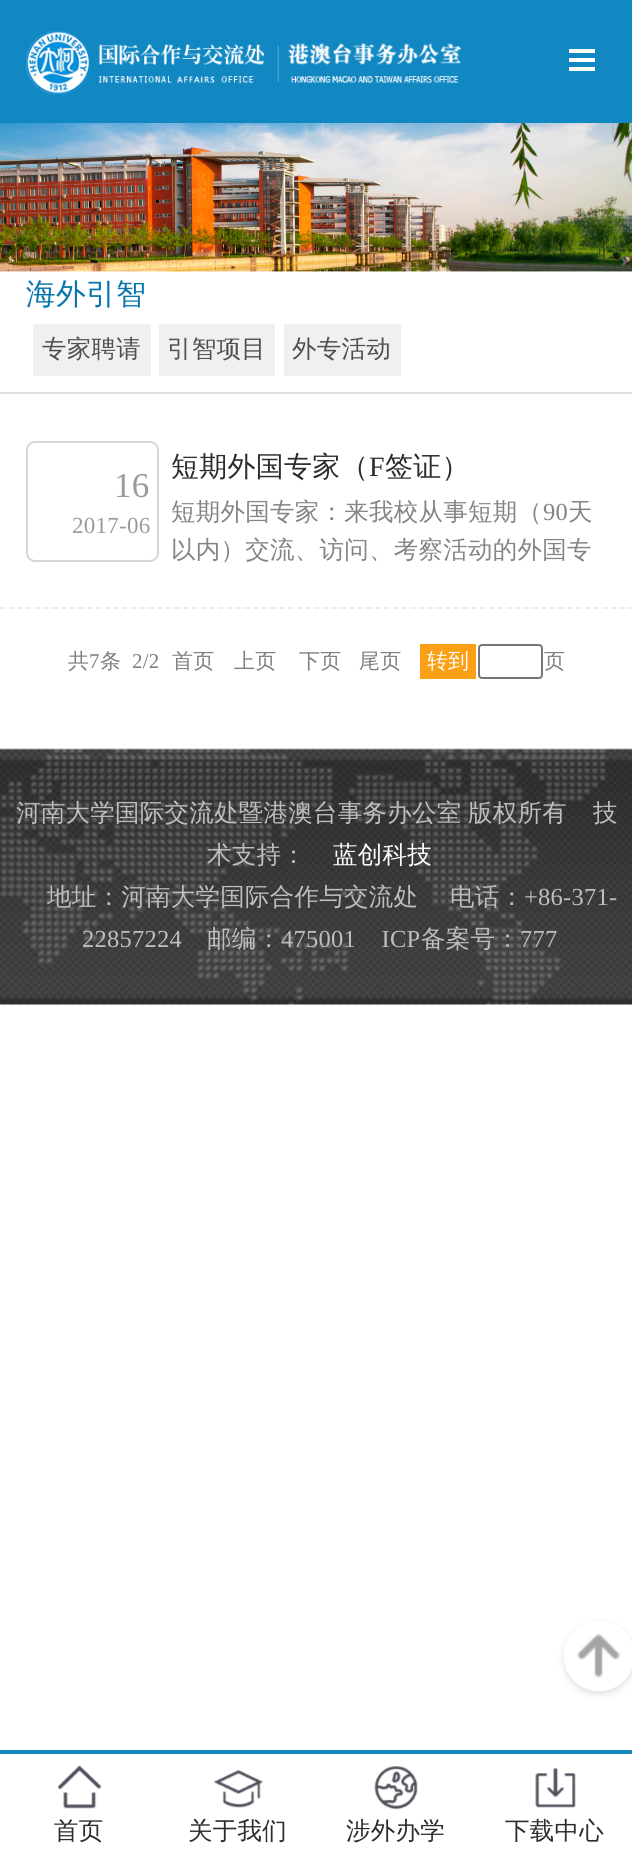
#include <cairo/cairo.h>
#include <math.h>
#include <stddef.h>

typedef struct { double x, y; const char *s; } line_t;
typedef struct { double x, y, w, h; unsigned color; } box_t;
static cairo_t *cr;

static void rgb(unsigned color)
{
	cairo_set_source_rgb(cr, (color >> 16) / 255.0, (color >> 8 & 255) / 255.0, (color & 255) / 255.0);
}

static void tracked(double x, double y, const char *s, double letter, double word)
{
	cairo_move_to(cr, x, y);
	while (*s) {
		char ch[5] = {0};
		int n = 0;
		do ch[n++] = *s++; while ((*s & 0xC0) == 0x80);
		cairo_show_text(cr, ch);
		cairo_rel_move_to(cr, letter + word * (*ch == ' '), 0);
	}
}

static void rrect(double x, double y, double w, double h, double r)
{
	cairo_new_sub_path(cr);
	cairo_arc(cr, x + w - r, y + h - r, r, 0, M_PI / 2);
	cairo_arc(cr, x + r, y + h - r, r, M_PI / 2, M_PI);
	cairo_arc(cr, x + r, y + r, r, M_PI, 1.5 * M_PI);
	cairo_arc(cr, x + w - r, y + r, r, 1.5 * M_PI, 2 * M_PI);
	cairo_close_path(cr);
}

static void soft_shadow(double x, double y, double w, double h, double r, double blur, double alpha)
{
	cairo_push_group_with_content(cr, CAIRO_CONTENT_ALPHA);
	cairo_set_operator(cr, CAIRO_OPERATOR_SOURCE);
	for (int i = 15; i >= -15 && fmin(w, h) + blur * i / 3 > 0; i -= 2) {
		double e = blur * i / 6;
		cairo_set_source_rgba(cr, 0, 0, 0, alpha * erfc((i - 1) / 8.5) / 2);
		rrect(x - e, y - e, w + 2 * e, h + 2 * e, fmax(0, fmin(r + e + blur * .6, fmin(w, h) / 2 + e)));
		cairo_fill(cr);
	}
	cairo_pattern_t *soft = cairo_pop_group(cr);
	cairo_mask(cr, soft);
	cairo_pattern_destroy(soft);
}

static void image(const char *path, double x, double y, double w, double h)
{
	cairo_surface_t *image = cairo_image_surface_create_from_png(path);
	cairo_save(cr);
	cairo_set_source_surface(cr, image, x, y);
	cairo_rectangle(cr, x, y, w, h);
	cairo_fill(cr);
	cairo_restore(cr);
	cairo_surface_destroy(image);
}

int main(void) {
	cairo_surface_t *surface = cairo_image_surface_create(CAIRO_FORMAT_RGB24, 632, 1860);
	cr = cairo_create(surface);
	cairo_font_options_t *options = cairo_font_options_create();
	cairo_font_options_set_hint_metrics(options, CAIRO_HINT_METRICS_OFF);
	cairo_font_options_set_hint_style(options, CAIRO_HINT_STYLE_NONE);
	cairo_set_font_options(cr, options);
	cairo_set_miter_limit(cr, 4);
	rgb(0xffffff);
	cairo_paint(cr);
	rgb(0x1288c3);
	cairo_rectangle(cr, 0, 0, 632, 123);
	cairo_fill(cr);
	image("img/1.png", 26, 31, 435, 64);
	{
		static const box_t items[] = {
			{569, 49, 26, 4, 0xffffff},
			{569, 58, 26, 4, 0xffffff},
			{569, 67, 26, 4, 0xffffff},
		};
		for (size_t i = 0; i < sizeof items / sizeof *items; i++) {
			rgb(items[i].color);
			cairo_rectangle(cr, items[i].x, items[i].y, items[i].w, items[i].h);
			cairo_fill(cr);
		}
	}
	image("img/2.png", 0, 123, 632, 149);
	{
		static const box_t items[] = {
			{0, 392, 632, 2, 0xdfdfdf},
			{33, 324, 118, 52, 0xf0f0f0},
			{159, 324, 116, 52, 0xf0f0f0},
			{284, 324, 117, 52, 0xf0f0f0},
		};
		for (size_t i = 0; i < sizeof items / sizeof *items; i++) {
			rgb(items[i].color);
			cairo_rectangle(cr, items[i].x, items[i].y, items[i].w, items[i].h);
			cairo_fill(cr);
		}
	}
	cairo_new_path(cr);
	cairo_move_to(cr, 0, 608);
	cairo_line_to(cr, 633.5, 608);
	rgb(0xeaeaea);
	cairo_set_line_width(cr, 1.8);
	cairo_set_dash(cr, (double[]){5.25, 3.48}, 2, 0);
	cairo_stroke(cr);
	rrect(27, 442, 131, 119, 8);
	rgb(0xd7d7d7);
	cairo_set_line_width(cr, 2);
	cairo_set_dash(cr, NULL, 0, 0);
	cairo_stroke(cr);
	rgb(0xfba015);
	cairo_rectangle(cr, 420, 644, 56, 35);
	cairo_fill(cr);
	rrect(479, 645, 63, 33, 3);
	rgb(0x767676);
	cairo_stroke(cr);
	image("img/3.png", 0, 748, 632, 257);
	cairo_save(cr);
	cairo_set_fill_rule(cr, CAIRO_FILL_RULE_EVEN_ODD);
	cairo_new_path(cr);
	cairo_move_to(cr, 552, 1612);
	cairo_line_to(cr, 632, 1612);
	cairo_line_to(cr, 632, 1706);
	cairo_line_to(cr, 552, 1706);
	cairo_close_path(cr);
	cairo_move_to(cr, 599, 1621);
	cairo_curve_to(cr, 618.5, 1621, 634, 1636.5, 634, 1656);
	cairo_curve_to(cr, 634, 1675.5, 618.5, 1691, 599, 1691);
	cairo_curve_to(cr, 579.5, 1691, 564, 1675.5, 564, 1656);
	cairo_curve_to(cr, 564, 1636.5, 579.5, 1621, 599, 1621);
	cairo_close_path(cr);
	cairo_clip(cr);
	rgb(0xe1e0e0);
	soft_shadow(564, 1624, 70, 70, 35, 3.5, 1);
	cairo_restore(cr);
	cairo_set_source_rgba(cr, 1, 1, 1, 0.9);
	cairo_arc(cr, 599, 1656, 35, 0, 2 * M_PI);
	cairo_fill(cr);
	image("img/4.png", 577, 1633, 44, 45);
	rgb(0x1288c3);
	cairo_rectangle(cr, 0, 1750, 632, 4);
	cairo_fill(cr);
	image("img/5.png", 58, 1765, 44, 44);
	image("img/6.png", 213, 1769, 51, 39);
	image("img/7.png", 374, 1766, 44, 44);
	image("img/8.png", 535, 1768, 41, 40);
	cairo_select_font_face(cr, "WenQuanYi Zen Hei Medium", CAIRO_FONT_SLANT_NORMAL, CAIRO_FONT_WEIGHT_NORMAL);
	cairo_set_font_size(cr, 29.75);
	rgb(0x0775ac);
	tracked(26, 304, "海外引智", 0.25, 0);
	cairo_set_font_size(cr, 24.5);
	rgb(0x504f4f);
	{
		static const line_t items[] = {
			{42, 357, "专家聘请"},
			{167, 357, "引智项目"},
			{292, 357, "外专活动"},
		};
		for (size_t i = 0; i < sizeof items / sizeof *items; i++) {
			tracked(items[i].x, items[i].y, items[i].s, 0.25, 0);
		}
	}
	cairo_select_font_face(cr, "Liberation Serif", CAIRO_FONT_SLANT_NORMAL, CAIRO_FONT_WEIGHT_NORMAL);
	cairo_set_font_size(cr, 35);
	rgb(0x9c9b9b);
	tracked(114, 497, "16", 0.25, 0);
	cairo_set_font_size(cr, 23);
	tracked(72, 533, "2017-06", 0.25, 0);
	cairo_select_font_face(cr, "WenQuanYi Zen Hei Medium", CAIRO_FONT_SLANT_NORMAL, CAIRO_FONT_WEIGHT_NORMAL);
	cairo_set_font_size(cr, 28);
	rgb(0x2c2c2c);
	tracked(171, 476, "短期外国专家（", 0.25, 0);
	cairo_select_font_face(cr, "Liberation Serif", CAIRO_FONT_SLANT_NORMAL, CAIRO_FONT_WEIGHT_NORMAL);
	tracked(369, 476, "F", 0.25, 0);
	cairo_select_font_face(cr, "WenQuanYi Zen Hei Medium", CAIRO_FONT_SLANT_NORMAL, CAIRO_FONT_WEIGHT_NORMAL);
	tracked(385, 476, "签证）", 0.25, 0);
	cairo_set_font_size(cr, 24.5);
	rgb(0x858484);
	tracked(171, 520, "短期外国专家：来我校从事短期（", 0.25, 0);
	cairo_select_font_face(cr, "Liberation Serif", CAIRO_FONT_SLANT_NORMAL, CAIRO_FONT_WEIGHT_NORMAL);
	tracked(543, 520, "90", 0.25, 0);
	cairo_select_font_face(cr, "WenQuanYi Zen Hei Medium", CAIRO_FONT_SLANT_NORMAL, CAIRO_FONT_WEIGHT_NORMAL);
	tracked(568, 520, "天", 0.25, 0);
	tracked(171, 558, "以内）交流、访问、考察活动的外国专", 0.25, 0);
	cairo_set_font_size(cr, 21);
	rgb(0x7f7e7e);
	tracked(68, 668, "共", 0.25, 0);
	cairo_select_font_face(cr, "Liberation Serif", CAIRO_FONT_SLANT_NORMAL, CAIRO_FONT_WEIGHT_NORMAL);
	tracked(89, 668, "7", 0.25, 0);
	cairo_select_font_face(cr, "WenQuanYi Zen Hei Medium", CAIRO_FONT_SLANT_NORMAL, CAIRO_FONT_WEIGHT_NORMAL);
	tracked(100, 668, "条", 0.25, 0);
	cairo_select_font_face(cr, "Liberation Serif", CAIRO_FONT_SLANT_NORMAL, CAIRO_FONT_WEIGHT_NORMAL);
	tracked(132, 668, "2/2", 0.25, 0);
	cairo_select_font_face(cr, "WenQuanYi Zen Hei Medium", CAIRO_FONT_SLANT_NORMAL, CAIRO_FONT_WEIGHT_NORMAL);
	{
		static const line_t items[] = {
			{172, 668, "首页"},
			{234, 668, "上页"},
			{299, 668, "下页"},
			{359, 668, "尾页"},
		};
		for (size_t i = 0; i < sizeof items / sizeof *items; i++) {
			tracked(items[i].x, items[i].y, items[i].s, 0.25, 0);
		}
	}
	rgb(0xffffff);
	cairo_move_to(cr, 427, 668);
	cairo_show_text(cr, "转到");
	rgb(0x7f7e7e);
	tracked(544, 668, "页", 0.25, 0);
	cairo_set_font_size(cr, 24.5);
	rgb(0xbebebe);
	tracked(16, 821, "河南大学国际交流处暨港澳台事务办公室 版权所有", 0.25, -1);
	tracked(593, 821, "技", 0.25, 0);
	tracked(207, 863, "术支持：", 0.25, 0);
	rgb(0xffffff);
	tracked(333, 863, "蓝创科技", 0.25, 0);
	rgb(0xbebebe);
	tracked(47, 905, "地址：河南大学国际合作与交流处", 0.25, 0);
	tracked(450, 905, "电话：", 0.25, 0);
	cairo_select_font_face(cr, "Liberation Serif", CAIRO_FONT_SLANT_NORMAL, CAIRO_FONT_WEIGHT_NORMAL);
	tracked(524, 905, "+86-371-", 0.25, 0);
	tracked(82, 947, "22857224", 0.25, 0);
	cairo_select_font_face(cr, "WenQuanYi Zen Hei Medium", CAIRO_FONT_SLANT_NORMAL, CAIRO_FONT_WEIGHT_NORMAL);
	tracked(207, 947, "邮编：", 0.25, 0);
	cairo_select_font_face(cr, "Liberation Serif", CAIRO_FONT_SLANT_NORMAL, CAIRO_FONT_WEIGHT_NORMAL);
	tracked(281, 947, "475001    ICP", 0.25, 0);
	cairo_select_font_face(cr, "WenQuanYi Zen Hei Medium", CAIRO_FONT_SLANT_NORMAL, CAIRO_FONT_WEIGHT_NORMAL);
	tracked(421, 947, "备案号：", 0.25, 0);
	cairo_select_font_face(cr, "Liberation Serif", CAIRO_FONT_SLANT_NORMAL, CAIRO_FONT_WEIGHT_NORMAL);
	tracked(520, 947, "777", 0.25, 0);
	cairo_select_font_face(cr, "WenQuanYi Zen Hei Medium", CAIRO_FONT_SLANT_NORMAL, CAIRO_FONT_WEIGHT_NORMAL);
	rgb(0x2c2c2c);
	{
		static const line_t items[] = {
			{54, 1839, "首页"},
			{188, 1839, "关于我们"},
			{346, 1839, "涉外办学"},
			{505, 1839, "下载中心"},
		};
		for (size_t i = 0; i < sizeof items / sizeof *items; i++) {
			tracked(items[i].x, items[i].y, items[i].s, 0.25, 0);
		}
	}
	cairo_surface_write_to_png(surface, "page.png");
	cairo_font_options_destroy(options);
	cairo_destroy(cr);
	cairo_surface_destroy(surface);
	return 0;
}
